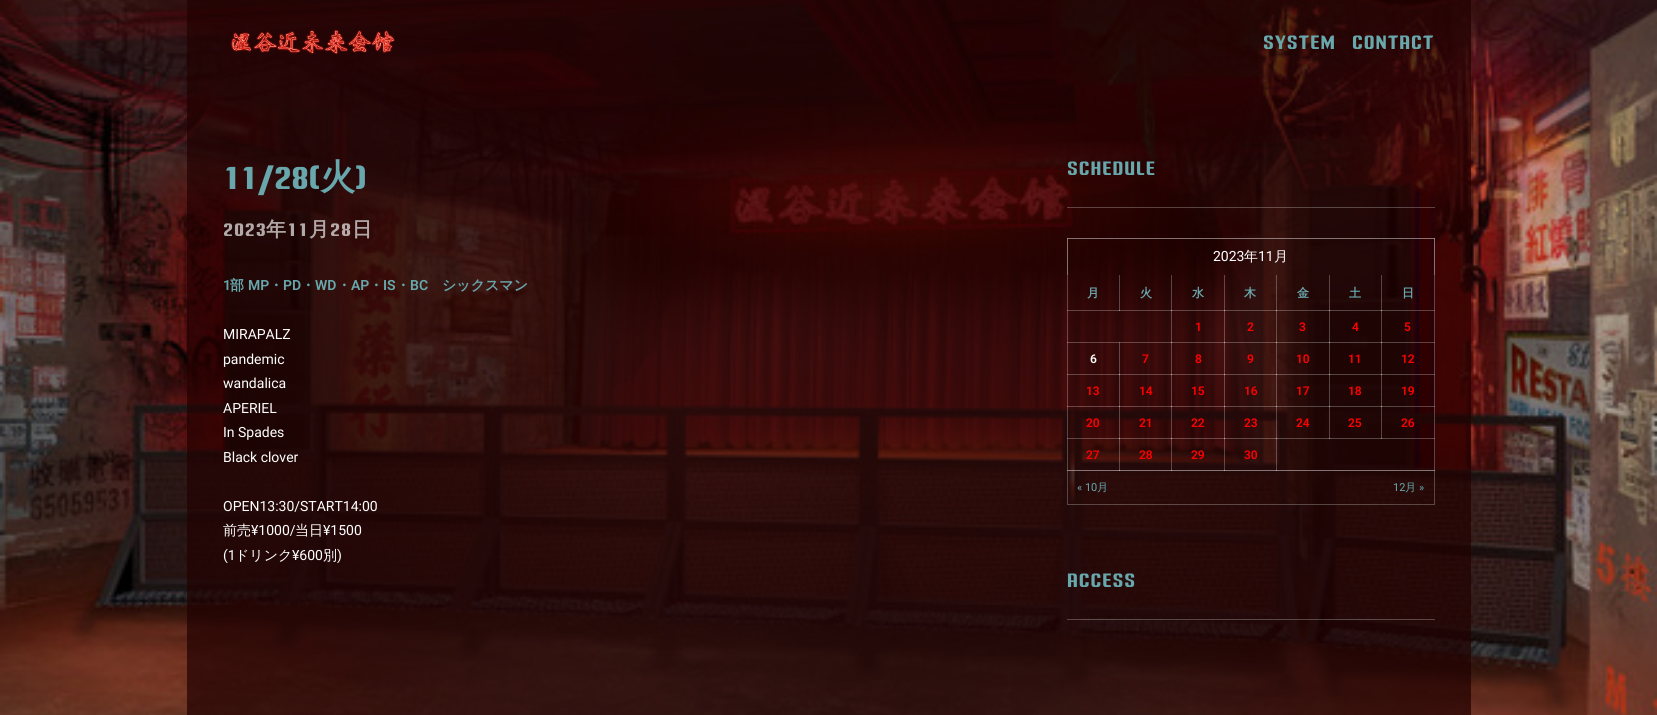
#include <cairo/cairo.h>
#include <math.h>
#include <stddef.h>

typedef struct { double x, y; const char *s; } line_t;
static cairo_t *cr;

static void rgb(unsigned color)
{
	cairo_set_source_rgb(cr, (color >> 16) / 255.0, (color >> 8 & 255) / 255.0, (color & 255) / 255.0);
}

static void tracked(double x, double y, const char *s, double letter, double word)
{
	cairo_move_to(cr, x, y);
	while (*s) {
		char ch[5] = {0};
		int n = 0;
		do ch[n++] = *s++; while ((*s & 0xC0) == 0x80);
		cairo_show_text(cr, ch);
		cairo_rel_move_to(cr, letter + word * (*ch == ' '), 0);
	}
}

static void image(const char *path, double x, double y, double w, double h)
{
	cairo_surface_t *image = cairo_image_surface_create_from_png(path);
	cairo_save(cr);
	cairo_set_source_surface(cr, image, x, y);
	cairo_rectangle(cr, x, y, w, h);
	cairo_fill(cr);
	cairo_restore(cr);
	cairo_surface_destroy(image);
}

int main(void) {
	cairo_surface_t *surface = cairo_image_surface_create(CAIRO_FORMAT_RGB24, 1657, 715);
	cr = cairo_create(surface);
	cairo_font_options_t *options = cairo_font_options_create();
	cairo_font_options_set_hint_metrics(options, CAIRO_HINT_METRICS_OFF);
	cairo_font_options_set_hint_style(options, CAIRO_HINT_STYLE_NONE);
	cairo_set_font_options(cr, options);
	cairo_set_miter_limit(cr, 4);
	rgb(0xffffff);
	cairo_paint(cr);
	image("img/1.png", 0, 0, 1657, 715);
	cairo_set_source_rgba(cr, 0.129, 0, 0, 0.7);
	cairo_rectangle(cr, 187, 0, 1284, 84);
	cairo_fill(cr);
	image("img/2.png", 230, 29, 165, 26);
	cairo_rectangle(cr, 187, 84, 1284, 631);
	cairo_fill(cr);
	cairo_set_source_rgba(cr, 1, 1, 1, 0.25);
	cairo_rectangle(cr, 1067, 207, 368, 1);
	cairo_fill(cr);
	cairo_new_path(cr);
	cairo_move_to(cr, 1067, 238);
	cairo_line_to(cr, 1435, 238);
	cairo_line_to(cr, 1434, 239);
	cairo_line_to(cr, 1068, 239);
	cairo_close_path(cr);
	cairo_fill(cr);
	cairo_new_path(cr);
	cairo_move_to(cr, 1435, 238);
	cairo_line_to(cr, 1435, 275);
	cairo_line_to(cr, 1434, 275);
	cairo_line_to(cr, 1434, 239);
	cairo_close_path(cr);
	cairo_fill(cr);
	cairo_new_path(cr);
	cairo_move_to(cr, 1067, 275);
	cairo_line_to(cr, 1067, 238);
	cairo_line_to(cr, 1068, 239);
	cairo_line_to(cr, 1068, 275);
	cairo_close_path(cr);
	cairo_fill(cr);
	cairo_rectangle(cr, 1067, 238, 368, 1);
	cairo_fill(cr);
	cairo_rectangle(cr, 1434, 238, 1, 233);
	cairo_fill(cr);
	cairo_rectangle(cr, 1067, 470, 368, 1);
	cairo_fill(cr);
	cairo_rectangle(cr, 1067, 238, 1, 233);
	cairo_fill(cr);
	cairo_rectangle(cr, 1381, 438, 54, 1);
	cairo_fill(cr);
	cairo_rectangle(cr, 1381, 406, 1, 33);
	cairo_fill(cr);
	cairo_rectangle(cr, 1381, 406, 54, 1);
	cairo_fill(cr);
	cairo_rectangle(cr, 1381, 374, 1, 33);
	cairo_fill(cr);
	cairo_rectangle(cr, 1381, 374, 54, 1);
	cairo_fill(cr);
	cairo_rectangle(cr, 1381, 342, 1, 33);
	cairo_fill(cr);
	cairo_rectangle(cr, 1381, 342, 54, 1);
	cairo_fill(cr);
	cairo_rectangle(cr, 1381, 310, 1, 33);
	cairo_fill(cr);
	cairo_rectangle(cr, 1381, 310, 54, 1);
	cairo_fill(cr);
	cairo_rectangle(cr, 1381, 275, 1, 36);
	cairo_fill(cr);
	cairo_rectangle(cr, 1329, 438, 53, 1);
	cairo_fill(cr);
	cairo_rectangle(cr, 1329, 406, 1, 33);
	cairo_fill(cr);
	cairo_rectangle(cr, 1329, 406, 53, 1);
	cairo_fill(cr);
	cairo_rectangle(cr, 1329, 374, 1, 33);
	cairo_fill(cr);
	cairo_rectangle(cr, 1329, 374, 53, 1);
	cairo_fill(cr);
	cairo_rectangle(cr, 1329, 342, 1, 33);
	cairo_fill(cr);
	cairo_rectangle(cr, 1329, 342, 53, 1);
	cairo_fill(cr);
	cairo_rectangle(cr, 1329, 310, 1, 33);
	cairo_fill(cr);
	cairo_rectangle(cr, 1329, 310, 53, 1);
	cairo_fill(cr);
	cairo_rectangle(cr, 1329, 275, 1, 36);
	cairo_fill(cr);
	cairo_rectangle(cr, 1276, 470, 159, 1);
	cairo_fill(cr);
	cairo_rectangle(cr, 1276, 438, 1, 33);
	cairo_fill(cr);
	cairo_rectangle(cr, 1276, 438, 54, 1);
	cairo_fill(cr);
	cairo_rectangle(cr, 1276, 406, 1, 33);
	cairo_fill(cr);
	cairo_rectangle(cr, 1276, 406, 54, 1);
	cairo_fill(cr);
	cairo_rectangle(cr, 1276, 374, 1, 33);
	cairo_fill(cr);
	cairo_rectangle(cr, 1276, 374, 54, 1);
	cairo_fill(cr);
	cairo_rectangle(cr, 1276, 342, 1, 33);
	cairo_fill(cr);
	cairo_rectangle(cr, 1276, 342, 54, 1);
	cairo_fill(cr);
	cairo_rectangle(cr, 1276, 310, 1, 33);
	cairo_fill(cr);
	cairo_rectangle(cr, 1276, 310, 54, 1);
	cairo_fill(cr);
	cairo_rectangle(cr, 1276, 275, 1, 36);
	cairo_fill(cr);
	cairo_rectangle(cr, 1224, 470, 53, 1);
	cairo_fill(cr);
	cairo_rectangle(cr, 1224, 438, 1, 33);
	cairo_fill(cr);
	cairo_rectangle(cr, 1224, 438, 53, 1);
	cairo_fill(cr);
	cairo_rectangle(cr, 1224, 406, 1, 33);
	cairo_fill(cr);
	cairo_rectangle(cr, 1224, 406, 53, 1);
	cairo_fill(cr);
	cairo_rectangle(cr, 1224, 374, 1, 33);
	cairo_fill(cr);
	cairo_rectangle(cr, 1224, 374, 53, 1);
	cairo_fill(cr);
	cairo_rectangle(cr, 1224, 342, 1, 33);
	cairo_fill(cr);
	cairo_rectangle(cr, 1224, 342, 53, 1);
	cairo_fill(cr);
	cairo_rectangle(cr, 1224, 310, 1, 33);
	cairo_fill(cr);
	cairo_rectangle(cr, 1224, 310, 53, 1);
	cairo_fill(cr);
	cairo_rectangle(cr, 1224, 275, 1, 36);
	cairo_fill(cr);
	cairo_rectangle(cr, 1171, 470, 54, 1);
	cairo_fill(cr);
	cairo_rectangle(cr, 1171, 438, 1, 33);
	cairo_fill(cr);
	cairo_rectangle(cr, 1171, 438, 54, 1);
	cairo_fill(cr);
	cairo_rectangle(cr, 1171, 406, 1, 33);
	cairo_fill(cr);
	cairo_rectangle(cr, 1171, 406, 54, 1);
	cairo_fill(cr);
	cairo_rectangle(cr, 1171, 374, 1, 33);
	cairo_fill(cr);
	cairo_rectangle(cr, 1171, 374, 54, 1);
	cairo_fill(cr);
	cairo_rectangle(cr, 1171, 342, 1, 33);
	cairo_fill(cr);
	cairo_rectangle(cr, 1171, 342, 54, 1);
	cairo_fill(cr);
	cairo_rectangle(cr, 1171, 310, 1, 33);
	cairo_fill(cr);
	cairo_rectangle(cr, 1171, 310, 54, 1);
	cairo_fill(cr);
	cairo_rectangle(cr, 1171, 275, 1, 36);
	cairo_fill(cr);
	cairo_rectangle(cr, 1119, 310, 53, 1);
	cairo_fill(cr);
	cairo_rectangle(cr, 1119, 275, 1, 36);
	cairo_fill(cr);
	cairo_rectangle(cr, 1067, 310, 53, 1);
	cairo_fill(cr);
	cairo_rectangle(cr, 1119, 470, 53, 1);
	cairo_fill(cr);
	cairo_rectangle(cr, 1119, 438, 1, 33);
	cairo_fill(cr);
	cairo_rectangle(cr, 1119, 438, 53, 1);
	cairo_fill(cr);
	cairo_rectangle(cr, 1119, 406, 1, 33);
	cairo_fill(cr);
	cairo_rectangle(cr, 1119, 406, 53, 1);
	cairo_fill(cr);
	cairo_rectangle(cr, 1119, 374, 1, 33);
	cairo_fill(cr);
	cairo_rectangle(cr, 1119, 374, 53, 1);
	cairo_fill(cr);
	cairo_rectangle(cr, 1119, 342, 1, 33);
	cairo_fill(cr);
	cairo_rectangle(cr, 1067, 342, 105, 1);
	cairo_fill(cr);
	cairo_rectangle(cr, 1067, 374, 53, 1);
	cairo_fill(cr);
	cairo_rectangle(cr, 1067, 406, 53, 1);
	cairo_fill(cr);
	cairo_rectangle(cr, 1067, 438, 53, 1);
	cairo_fill(cr);
	cairo_rectangle(cr, 1067, 470, 53, 1);
	cairo_fill(cr);
	cairo_new_path(cr);
	cairo_move_to(cr, 1435, 471);
	cairo_line_to(cr, 1435, 505);
	cairo_line_to(cr, 1434, 504);
	cairo_line_to(cr, 1434, 471);
	cairo_close_path(cr);
	cairo_fill(cr);
	cairo_new_path(cr);
	cairo_move_to(cr, 1435, 505);
	cairo_line_to(cr, 1067, 505);
	cairo_line_to(cr, 1068, 504);
	cairo_line_to(cr, 1434, 504);
	cairo_close_path(cr);
	cairo_fill(cr);
	cairo_new_path(cr);
	cairo_move_to(cr, 1067, 505);
	cairo_line_to(cr, 1067, 471);
	cairo_line_to(cr, 1068, 471);
	cairo_line_to(cr, 1068, 504);
	cairo_close_path(cr);
	cairo_fill(cr);
	cairo_rectangle(cr, 1067, 619, 368, 1);
	cairo_fill(cr);
	cairo_select_font_face(cr, "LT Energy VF", CAIRO_FONT_SLANT_NORMAL, CAIRO_FONT_WEIGHT_BOLD);
	cairo_set_font_size(cr, 20);
	rgb(0x68a8ad);
	tracked(1263, 49, "SYSTEM", 1, 0);
	tracked(1352, 49, "CONTACT", 1, 0);
	cairo_set_font_size(cr, 35);
	cairo_move_to(cr, 223, 189);
	cairo_show_text(cr, "11/28(");
	cairo_select_font_face(cr, "WenQuanYi Zen Hei", CAIRO_FONT_SLANT_NORMAL, CAIRO_FONT_WEIGHT_BOLD);
	cairo_move_to(cr, 320, 189);
	cairo_show_text(cr, "火");
	cairo_select_font_face(cr, "LT Energy VF", CAIRO_FONT_SLANT_NORMAL, CAIRO_FONT_WEIGHT_BOLD);
	cairo_move_to(cr, 355, 189);
	cairo_show_text(cr, ")");
	cairo_set_font_size(cr, 20);
	rgb(0xb1a8a8);
	tracked(223, 236, "2023", 1, 0);
	cairo_select_font_face(cr, "WenQuanYi Zen Hei", CAIRO_FONT_SLANT_NORMAL, CAIRO_FONT_WEIGHT_BOLD);
	tracked(266, 236, "年", 1, 0);
	cairo_select_font_face(cr, "LT Energy VF", CAIRO_FONT_SLANT_NORMAL, CAIRO_FONT_WEIGHT_BOLD);
	tracked(287, 236, "11", 1, 0);
	cairo_select_font_face(cr, "WenQuanYi Zen Hei", CAIRO_FONT_SLANT_NORMAL, CAIRO_FONT_WEIGHT_BOLD);
	tracked(309, 236, "月", 1, 0);
	cairo_select_font_face(cr, "LT Energy VF", CAIRO_FONT_SLANT_NORMAL, CAIRO_FONT_WEIGHT_BOLD);
	rgb(0xb7aaa9);
	tracked(330, 236, "28", 1, 0);
	cairo_select_font_face(cr, "WenQuanYi Zen Hei", CAIRO_FONT_SLANT_NORMAL, CAIRO_FONT_WEIGHT_BOLD);
	rgb(0xb1a8a8);
	tracked(352, 236, "日", 1, 0);
	cairo_select_font_face(cr, "Roboto SemiBold", CAIRO_FONT_SLANT_NORMAL, CAIRO_FONT_WEIGHT_NORMAL);
	cairo_set_font_size(cr, 14);
	rgb(0x68a8ad);
	cairo_move_to(cr, 223, 290);
	cairo_show_text(cr, "1");
	cairo_select_font_face(cr, "WenQuanYi Zen Hei", CAIRO_FONT_SLANT_NORMAL, CAIRO_FONT_WEIGHT_BOLD);
	cairo_move_to(cr, 230, 290);
	cairo_show_text(cr, "部");
	cairo_select_font_face(cr, "Roboto SemiBold", CAIRO_FONT_SLANT_NORMAL, CAIRO_FONT_WEIGHT_NORMAL);
	cairo_move_to(cr, 248, 290);
	cairo_show_text(cr, "MP");
	cairo_select_font_face(cr, "WenQuanYi Zen Hei", CAIRO_FONT_SLANT_NORMAL, CAIRO_FONT_WEIGHT_BOLD);
	cairo_move_to(cr, 269, 290);
	cairo_show_text(cr, "・");
	cairo_select_font_face(cr, "Roboto SemiBold", CAIRO_FONT_SLANT_NORMAL, CAIRO_FONT_WEIGHT_NORMAL);
	cairo_move_to(cr, 283, 290);
	cairo_show_text(cr, "PD");
	cairo_select_font_face(cr, "WenQuanYi Zen Hei", CAIRO_FONT_SLANT_NORMAL, CAIRO_FONT_WEIGHT_BOLD);
	cairo_move_to(cr, 301, 290);
	cairo_show_text(cr, "・");
	cairo_select_font_face(cr, "Roboto SemiBold", CAIRO_FONT_SLANT_NORMAL, CAIRO_FONT_WEIGHT_NORMAL);
	cairo_move_to(cr, 315, 290);
	cairo_show_text(cr, "WD");
	cairo_select_font_face(cr, "WenQuanYi Zen Hei", CAIRO_FONT_SLANT_NORMAL, CAIRO_FONT_WEIGHT_BOLD);
	cairo_move_to(cr, 337, 290);
	cairo_show_text(cr, "・");
	cairo_select_font_face(cr, "Roboto SemiBold", CAIRO_FONT_SLANT_NORMAL, CAIRO_FONT_WEIGHT_NORMAL);
	cairo_move_to(cr, 351, 290);
	cairo_show_text(cr, "AP");
	cairo_select_font_face(cr, "WenQuanYi Zen Hei", CAIRO_FONT_SLANT_NORMAL, CAIRO_FONT_WEIGHT_BOLD);
	cairo_move_to(cr, 369, 290);
	cairo_show_text(cr, "・");
	cairo_select_font_face(cr, "Roboto SemiBold", CAIRO_FONT_SLANT_NORMAL, CAIRO_FONT_WEIGHT_NORMAL);
	cairo_move_to(cr, 383, 290);
	cairo_show_text(cr, "IS");
	cairo_select_font_face(cr, "WenQuanYi Zen Hei", CAIRO_FONT_SLANT_NORMAL, CAIRO_FONT_WEIGHT_BOLD);
	cairo_move_to(cr, 396, 290);
	cairo_show_text(cr, "・");
	cairo_select_font_face(cr, "Roboto SemiBold", CAIRO_FONT_SLANT_NORMAL, CAIRO_FONT_WEIGHT_NORMAL);
	cairo_move_to(cr, 410, 290);
	cairo_show_text(cr, "BC");
	cairo_select_font_face(cr, "WenQuanYi Zen Hei", CAIRO_FONT_SLANT_NORMAL, CAIRO_FONT_WEIGHT_BOLD);
	cairo_move_to(cr, 442, 290);
	cairo_show_text(cr, "シックスマン");
	cairo_select_font_face(cr, "Roboto", CAIRO_FONT_SLANT_NORMAL, CAIRO_FONT_WEIGHT_NORMAL);
	rgb(0xffffff);
	{
		static const line_t items[] = {
			{223, 339, "MIRAPALZ"},
			{223, 364, "pandemic"},
			{223, 388, "wandalica"},
			{223, 413, "APERIEL"},
			{223, 437, "In Spades"},
			{223, 462, "Black clover"},
			{223, 511, "OPEN13:30/START14:00"},
		};
		for (size_t i = 0; i < sizeof items / sizeof *items; i++) {
			cairo_move_to(cr, items[i].x, items[i].y);
			cairo_show_text(cr, items[i].s);
		}
	}
	cairo_select_font_face(cr, "WenQuanYi Zen Hei Medium", CAIRO_FONT_SLANT_NORMAL, CAIRO_FONT_WEIGHT_NORMAL);
	cairo_move_to(cr, 223, 535);
	cairo_show_text(cr, "前売");
	cairo_select_font_face(cr, "Roboto", CAIRO_FONT_SLANT_NORMAL, CAIRO_FONT_WEIGHT_NORMAL);
	cairo_move_to(cr, 251, 535);
	cairo_show_text(cr, "¥1000/");
	cairo_select_font_face(cr, "WenQuanYi Zen Hei Medium", CAIRO_FONT_SLANT_NORMAL, CAIRO_FONT_WEIGHT_NORMAL);
	cairo_move_to(cr, 295, 535);
	cairo_show_text(cr, "当日");
	cairo_select_font_face(cr, "Roboto", CAIRO_FONT_SLANT_NORMAL, CAIRO_FONT_WEIGHT_NORMAL);
	cairo_move_to(cr, 323, 535);
	cairo_show_text(cr, "¥1500");
	cairo_move_to(cr, 223, 560);
	cairo_show_text(cr, "(1");
	cairo_select_font_face(cr, "WenQuanYi Zen Hei Medium", CAIRO_FONT_SLANT_NORMAL, CAIRO_FONT_WEIGHT_NORMAL);
	cairo_move_to(cr, 235, 560);
	cairo_show_text(cr, "ドリンク");
	cairo_select_font_face(cr, "Roboto", CAIRO_FONT_SLANT_NORMAL, CAIRO_FONT_WEIGHT_NORMAL);
	cairo_move_to(cr, 292, 560);
	cairo_show_text(cr, "¥600");
	cairo_select_font_face(cr, "WenQuanYi Zen Hei Medium", CAIRO_FONT_SLANT_NORMAL, CAIRO_FONT_WEIGHT_NORMAL);
	cairo_move_to(cr, 323, 560);
	cairo_show_text(cr, "別");
	cairo_select_font_face(cr, "Roboto", CAIRO_FONT_SLANT_NORMAL, CAIRO_FONT_WEIGHT_NORMAL);
	cairo_move_to(cr, 337, 560);
	cairo_show_text(cr, ")");
	cairo_select_font_face(cr, "LT Energy VF", CAIRO_FONT_SLANT_NORMAL, CAIRO_FONT_WEIGHT_BOLD);
	cairo_set_font_size(cr, 20);
	rgb(0x68a8ad);
	tracked(1067, 175, "SCHEDULE", 1, 0);
	cairo_select_font_face(cr, "Roboto", CAIRO_FONT_SLANT_NORMAL, CAIRO_FONT_WEIGHT_NORMAL);
	cairo_set_font_size(cr, 14);
	rgb(0xffffff);
	cairo_move_to(cr, 1213, 261);
	cairo_show_text(cr, "2023");
	cairo_select_font_face(cr, "WenQuanYi Zen Hei Medium", CAIRO_FONT_SLANT_NORMAL, CAIRO_FONT_WEIGHT_NORMAL);
	cairo_move_to(cr, 1244, 261);
	cairo_show_text(cr, "年");
	cairo_select_font_face(cr, "Roboto", CAIRO_FONT_SLANT_NORMAL, CAIRO_FONT_WEIGHT_NORMAL);
	cairo_move_to(cr, 1258, 261);
	cairo_show_text(cr, "11");
	cairo_select_font_face(cr, "WenQuanYi Zen Hei Medium", CAIRO_FONT_SLANT_NORMAL, CAIRO_FONT_WEIGHT_NORMAL);
	cairo_move_to(cr, 1274, 261);
	cairo_show_text(cr, "月");
	cairo_select_font_face(cr, "WenQuanYi Zen Hei", CAIRO_FONT_SLANT_NORMAL, CAIRO_FONT_WEIGHT_BOLD);
	cairo_set_font_size(cr, 12);
	rgb(0x68a8ad);
	{
		static const line_t items[] = {
			{1087, 297, "月"},
			{1140, 297, "火"},
			{1192, 297, "水"},
			{1244, 297, "木"},
			{1297, 297, "金"},
			{1349, 297, "土"},
			{1402, 297, "日"},
		};
		for (size_t i = 0; i < sizeof items / sizeof *items; i++) {
			cairo_move_to(cr, items[i].x, items[i].y);
			cairo_show_text(cr, items[i].s);
		}
	}
	cairo_select_font_face(cr, "Roboto SemiBold", CAIRO_FONT_SLANT_NORMAL, CAIRO_FONT_WEIGHT_NORMAL);
	rgb(0xff0000);
	{
		static const line_t items[] = {
			{1195, 331, "1"},
			{1247, 331, "2"},
			{1299, 331, "3"},
			{1352, 331, "4"},
			{1404, 331, "5"},
		};
		for (size_t i = 0; i < sizeof items / sizeof *items; i++) {
			cairo_move_to(cr, items[i].x, items[i].y);
			cairo_show_text(cr, items[i].s);
		}
	}
	rgb(0xffffff);
	cairo_move_to(cr, 1090, 363);
	cairo_show_text(cr, "6");
	rgb(0xff0000);
	{
		static const line_t items[] = {
			{1142, 363, "7"},
			{1195, 363, "8"},
			{1247, 363, "9"},
			{1296, 363, "10"},
			{1348, 363, "11"},
			{1401, 363, "12"},
			{1086, 395, "13"},
			{1139, 395, "14"},
			{1191, 395, "15"},
			{1244, 395, "16"},
			{1296, 395, "17"},
			{1348, 395, "18"},
			{1401, 395, "19"},
			{1086, 427, "20"},
			{1139, 427, "21"},
			{1191, 427, "22"},
			{1244, 427, "23"},
			{1296, 427, "24"},
			{1348, 427, "25"},
			{1401, 427, "26"},
			{1086, 459, "27"},
			{1139, 459, "28"},
			{1191, 459, "29"},
			{1244, 459, "30"},
		};
		for (size_t i = 0; i < sizeof items / sizeof *items; i++) {
			cairo_move_to(cr, items[i].x, items[i].y);
			cairo_show_text(cr, items[i].s);
		}
	}
	cairo_select_font_face(cr, "Roboto", CAIRO_FONT_SLANT_NORMAL, CAIRO_FONT_WEIGHT_NORMAL);
	cairo_set_font_size(cr, 11);
	rgb(0x68a8ad);
	cairo_move_to(cr, 1077, 491);
	cairo_show_text(cr, "« 10");
	cairo_select_font_face(cr, "WenQuanYi Zen Hei Medium", CAIRO_FONT_SLANT_NORMAL, CAIRO_FONT_WEIGHT_NORMAL);
	cairo_move_to(cr, 1097, 491);
	cairo_show_text(cr, "月");
	cairo_select_font_face(cr, "Roboto", CAIRO_FONT_SLANT_NORMAL, CAIRO_FONT_WEIGHT_NORMAL);
	cairo_move_to(cr, 1393, 491);
	cairo_show_text(cr, "12");
	cairo_select_font_face(cr, "WenQuanYi Zen Hei Medium", CAIRO_FONT_SLANT_NORMAL, CAIRO_FONT_WEIGHT_NORMAL);
	cairo_move_to(cr, 1405, 491);
	cairo_show_text(cr, "月");
	cairo_select_font_face(cr, "Roboto", CAIRO_FONT_SLANT_NORMAL, CAIRO_FONT_WEIGHT_NORMAL);
	cairo_move_to(cr, 1419, 491);
	cairo_show_text(cr, "»");
	cairo_select_font_face(cr, "LT Energy VF", CAIRO_FONT_SLANT_NORMAL, CAIRO_FONT_WEIGHT_BOLD);
	cairo_set_font_size(cr, 20);
	tracked(1067, 587, "ACCESS", 1, 0);
	cairo_surface_write_to_png(surface, "page.png");
	cairo_font_options_destroy(options);
	cairo_destroy(cr);
	cairo_surface_destroy(surface);
	return 0;
}
